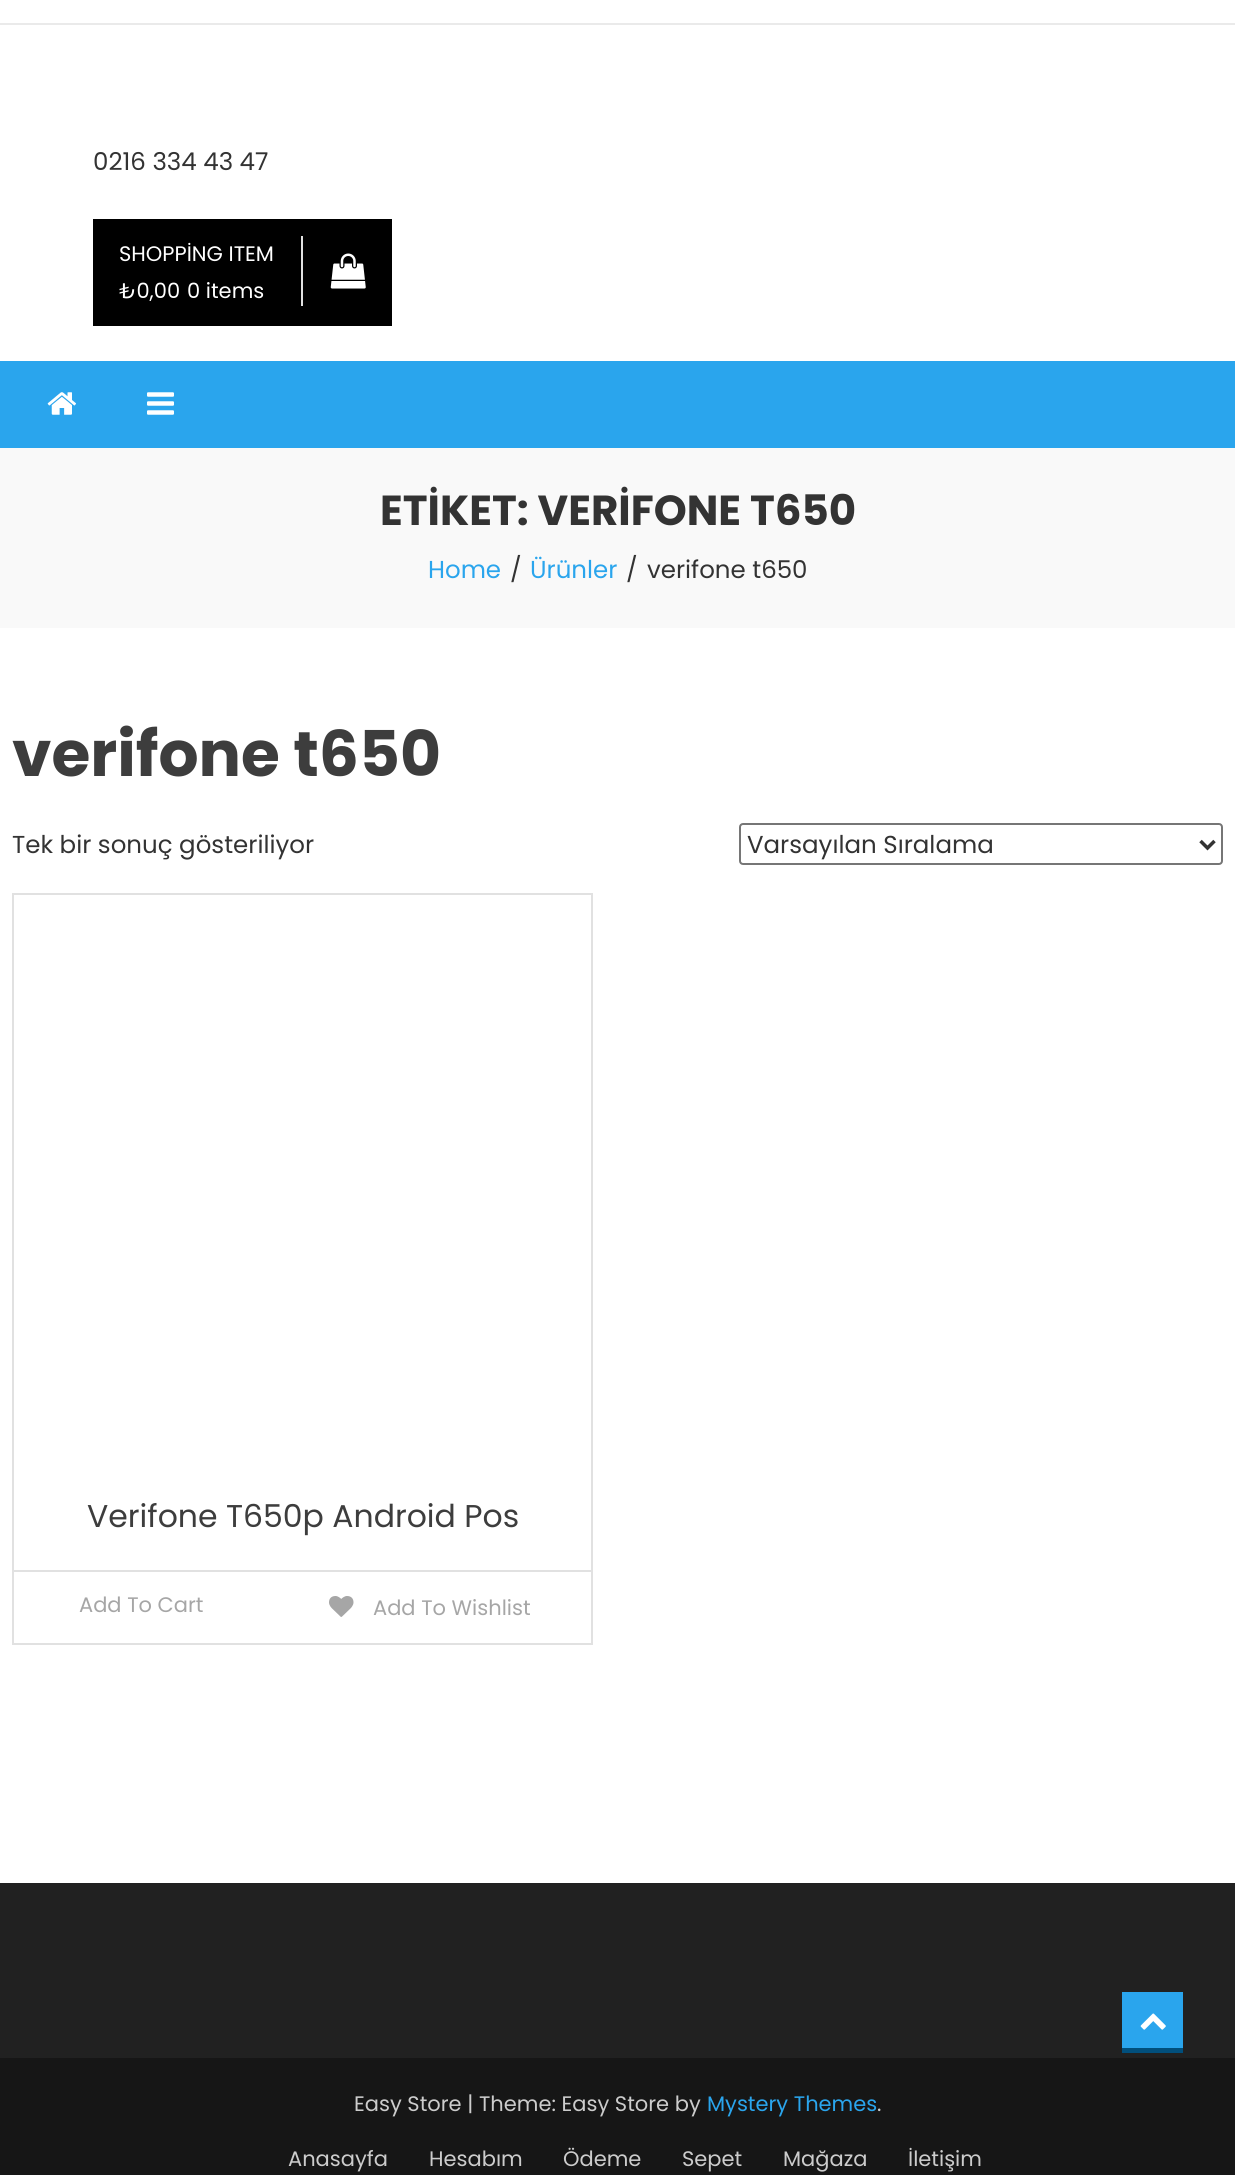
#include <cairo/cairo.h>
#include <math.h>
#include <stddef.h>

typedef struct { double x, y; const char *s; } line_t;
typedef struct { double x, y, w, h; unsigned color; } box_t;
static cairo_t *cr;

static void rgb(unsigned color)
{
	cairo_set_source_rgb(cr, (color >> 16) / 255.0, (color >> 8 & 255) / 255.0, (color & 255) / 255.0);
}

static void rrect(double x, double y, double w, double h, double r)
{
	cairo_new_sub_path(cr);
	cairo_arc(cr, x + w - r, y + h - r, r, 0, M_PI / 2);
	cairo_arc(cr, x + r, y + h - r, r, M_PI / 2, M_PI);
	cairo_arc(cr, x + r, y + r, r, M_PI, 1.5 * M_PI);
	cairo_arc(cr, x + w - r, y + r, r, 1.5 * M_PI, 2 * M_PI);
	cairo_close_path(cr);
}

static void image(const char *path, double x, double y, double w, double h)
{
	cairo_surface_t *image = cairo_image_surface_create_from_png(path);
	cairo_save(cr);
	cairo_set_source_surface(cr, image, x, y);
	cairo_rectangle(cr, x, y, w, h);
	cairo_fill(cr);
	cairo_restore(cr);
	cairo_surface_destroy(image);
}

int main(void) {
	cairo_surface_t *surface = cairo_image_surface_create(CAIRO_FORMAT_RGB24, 1235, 2175);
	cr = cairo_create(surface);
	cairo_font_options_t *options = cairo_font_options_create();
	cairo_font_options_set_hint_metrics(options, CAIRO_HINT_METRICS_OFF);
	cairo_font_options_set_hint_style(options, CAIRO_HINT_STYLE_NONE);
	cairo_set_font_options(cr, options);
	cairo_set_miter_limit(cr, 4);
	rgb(0xffffff);
	cairo_paint(cr);
	{
		static const box_t items[] = {
			{0, 23, 1235, 2, 0xeaeaea},
			{93, 219, 299, 107, 0x000000},
			{301, 236, 2, 70, 0xe1e1e1},
		};
		for (size_t i = 0; i < sizeof items / sizeof *items; i++) {
			rgb(items[i].color);
			cairo_rectangle(cr, items[i].x, items[i].y, items[i].w, items[i].h);
			cairo_fill(cr);
		}
	}
	image("img/1.png", 330, 253, 36, 36);
	rgb(0x2aa5ed);
	cairo_rectangle(cr, 0, 361, 1235, 87);
	cairo_fill(cr);
	image("img/2.png", 47, 392, 29, 23);
	image("img/3.png", 147, 392, 27, 23);
	rgb(0xf9f9f9);
	cairo_rectangle(cr, 0, 448, 1235, 180);
	cairo_fill(cr);
	rrect(740, 824, 482, 40, 3);
	rgb(0x767676);
	cairo_stroke(cr);
	cairo_new_path(cr);
	cairo_move_to(cr, 1200.5, 841);
	cairo_line_to(cr, 1207.5, 848);
	cairo_line_to(cr, 1214.5, 841);
	rgb(0x333333);
	cairo_set_line_width(cr, 3.5);
	cairo_stroke(cr);
	cairo_rectangle(cr, 13, 894, 579, 750);
	rgb(0xe1e1e1);
	cairo_set_line_width(cr, 2);
	cairo_stroke(cr);
	cairo_rectangle(cr, 14, 1570, 578, 2);
	cairo_fill(cr);
	image("img/4.png", 329, 1596, 25, 21);
	{
		static const box_t items[] = {
			{0, 1883, 1235, 175, 0x212121},
			{1122, 1992, 61, 56, 0x2aa5ed},
			{1122, 2048, 61, 5, 0x014f7c},
		};
		for (size_t i = 0; i < sizeof items / sizeof *items; i++) {
			rgb(items[i].color);
			cairo_rectangle(cr, items[i].x, items[i].y, items[i].w, items[i].h);
			cairo_fill(cr);
		}
	}
	image("img/5.png", 1140, 2013, 26, 17);
	rgb(0x161616);
	cairo_rectangle(cr, 0, 2058, 1235, 117);
	cairo_fill(cr);
	cairo_select_font_face(cr, "Poppins", CAIRO_FONT_SLANT_NORMAL, CAIRO_FONT_WEIGHT_NORMAL);
	cairo_set_font_size(cr, 24.5);
	rgb(0x333333);
	cairo_move_to(cr, 93, 170);
	cairo_show_text(cr, "0216 334 43 47");
	cairo_set_font_size(cr, 21);
	rgb(0xffffff);
	{
		static const line_t items[] = {
			{119, 261, "SHOPPİNG ITEM"},
			{119, 298, "₺0,00"},
			{187, 298, "0 items"},
		};
		for (size_t i = 0; i < sizeof items / sizeof *items; i++) {
			cairo_move_to(cr, items[i].x, items[i].y);
			cairo_show_text(cr, items[i].s);
		}
	}
	cairo_select_font_face(cr, "Poppins", CAIRO_FONT_SLANT_NORMAL, CAIRO_FONT_WEIGHT_BOLD);
	cairo_set_font_size(cr, 42);
	rgb(0x333333);
	cairo_move_to(cr, 380, 525);
	cairo_show_text(cr, "ETİKET: VERİFONE T650");
	cairo_select_font_face(cr, "Poppins", CAIRO_FONT_SLANT_NORMAL, CAIRO_FONT_WEIGHT_NORMAL);
	cairo_set_font_size(cr, 24.5);
	rgb(0x2aa5ed);
	cairo_move_to(cr, 428, 578);
	cairo_show_text(cr, "Home");
	rgb(0x333333);
	cairo_move_to(cr, 510, 578);
	cairo_show_text(cr, "/");
	rgb(0x2aa5ed);
	cairo_move_to(cr, 530, 578);
	cairo_show_text(cr, "Ürünler");
	rgb(0x333333);
	cairo_move_to(cr, 626, 578);
	cairo_show_text(cr, "/");
	cairo_move_to(cr, 647, 578);
	cairo_show_text(cr, "verifone t650");
	cairo_select_font_face(cr, "Poppins", CAIRO_FONT_SLANT_NORMAL, CAIRO_FONT_WEIGHT_BOLD);
	cairo_set_font_size(cr, 63);
	rgb(0x3d3d3d);
	cairo_move_to(cr, 12, 776);
	cairo_show_text(cr, "verifone t650");
	cairo_select_font_face(cr, "Poppins", CAIRO_FONT_SLANT_NORMAL, CAIRO_FONT_WEIGHT_NORMAL);
	cairo_set_font_size(cr, 24.5);
	rgb(0x333333);
	cairo_move_to(cr, 12, 853);
	cairo_show_text(cr, "Tek bir sonuç gösteriliyor");
	cairo_move_to(cr, 747, 853);
	cairo_show_text(cr, "Varsayılan Sıralama");
	cairo_set_font_size(cr, 31.5);
	rgb(0x3d3d3d);
	cairo_move_to(cr, 87, 1527);
	cairo_show_text(cr, "Verifone T650p Android Pos");
	cairo_set_font_size(cr, 21);
	rgb(0xa6a6a6);
	cairo_move_to(cr, 79, 1612);
	cairo_show_text(cr, "Add To Cart");
	cairo_move_to(cr, 373, 1615);
	cairo_show_text(cr, "Add To Wishlist");
	rgb(0xcccccc);
	cairo_move_to(cr, 354, 2111);
	cairo_show_text(cr, "Easy Store | Theme: Easy Store by");
	rgb(0x2aa5ed);
	cairo_move_to(cr, 707, 2111);
	cairo_show_text(cr, "Mystery Themes");
	rgb(0xcccccc);
	{
		static const line_t items[] = {
			{877, 2111, "."},
			{288, 2166, "Anasayfa"},
			{429, 2166, "Hesabım"},
			{563, 2166, "Ödeme"},
			{682, 2166, "Sepet"},
			{783, 2166, "Mağaza"},
			{908, 2166, "İletişim"},
		};
		for (size_t i = 0; i < sizeof items / sizeof *items; i++) {
			cairo_move_to(cr, items[i].x, items[i].y);
			cairo_show_text(cr, items[i].s);
		}
	}
	cairo_surface_write_to_png(surface, "page.png");
	cairo_font_options_destroy(options);
	cairo_destroy(cr);
	cairo_surface_destroy(surface);
	return 0;
}
